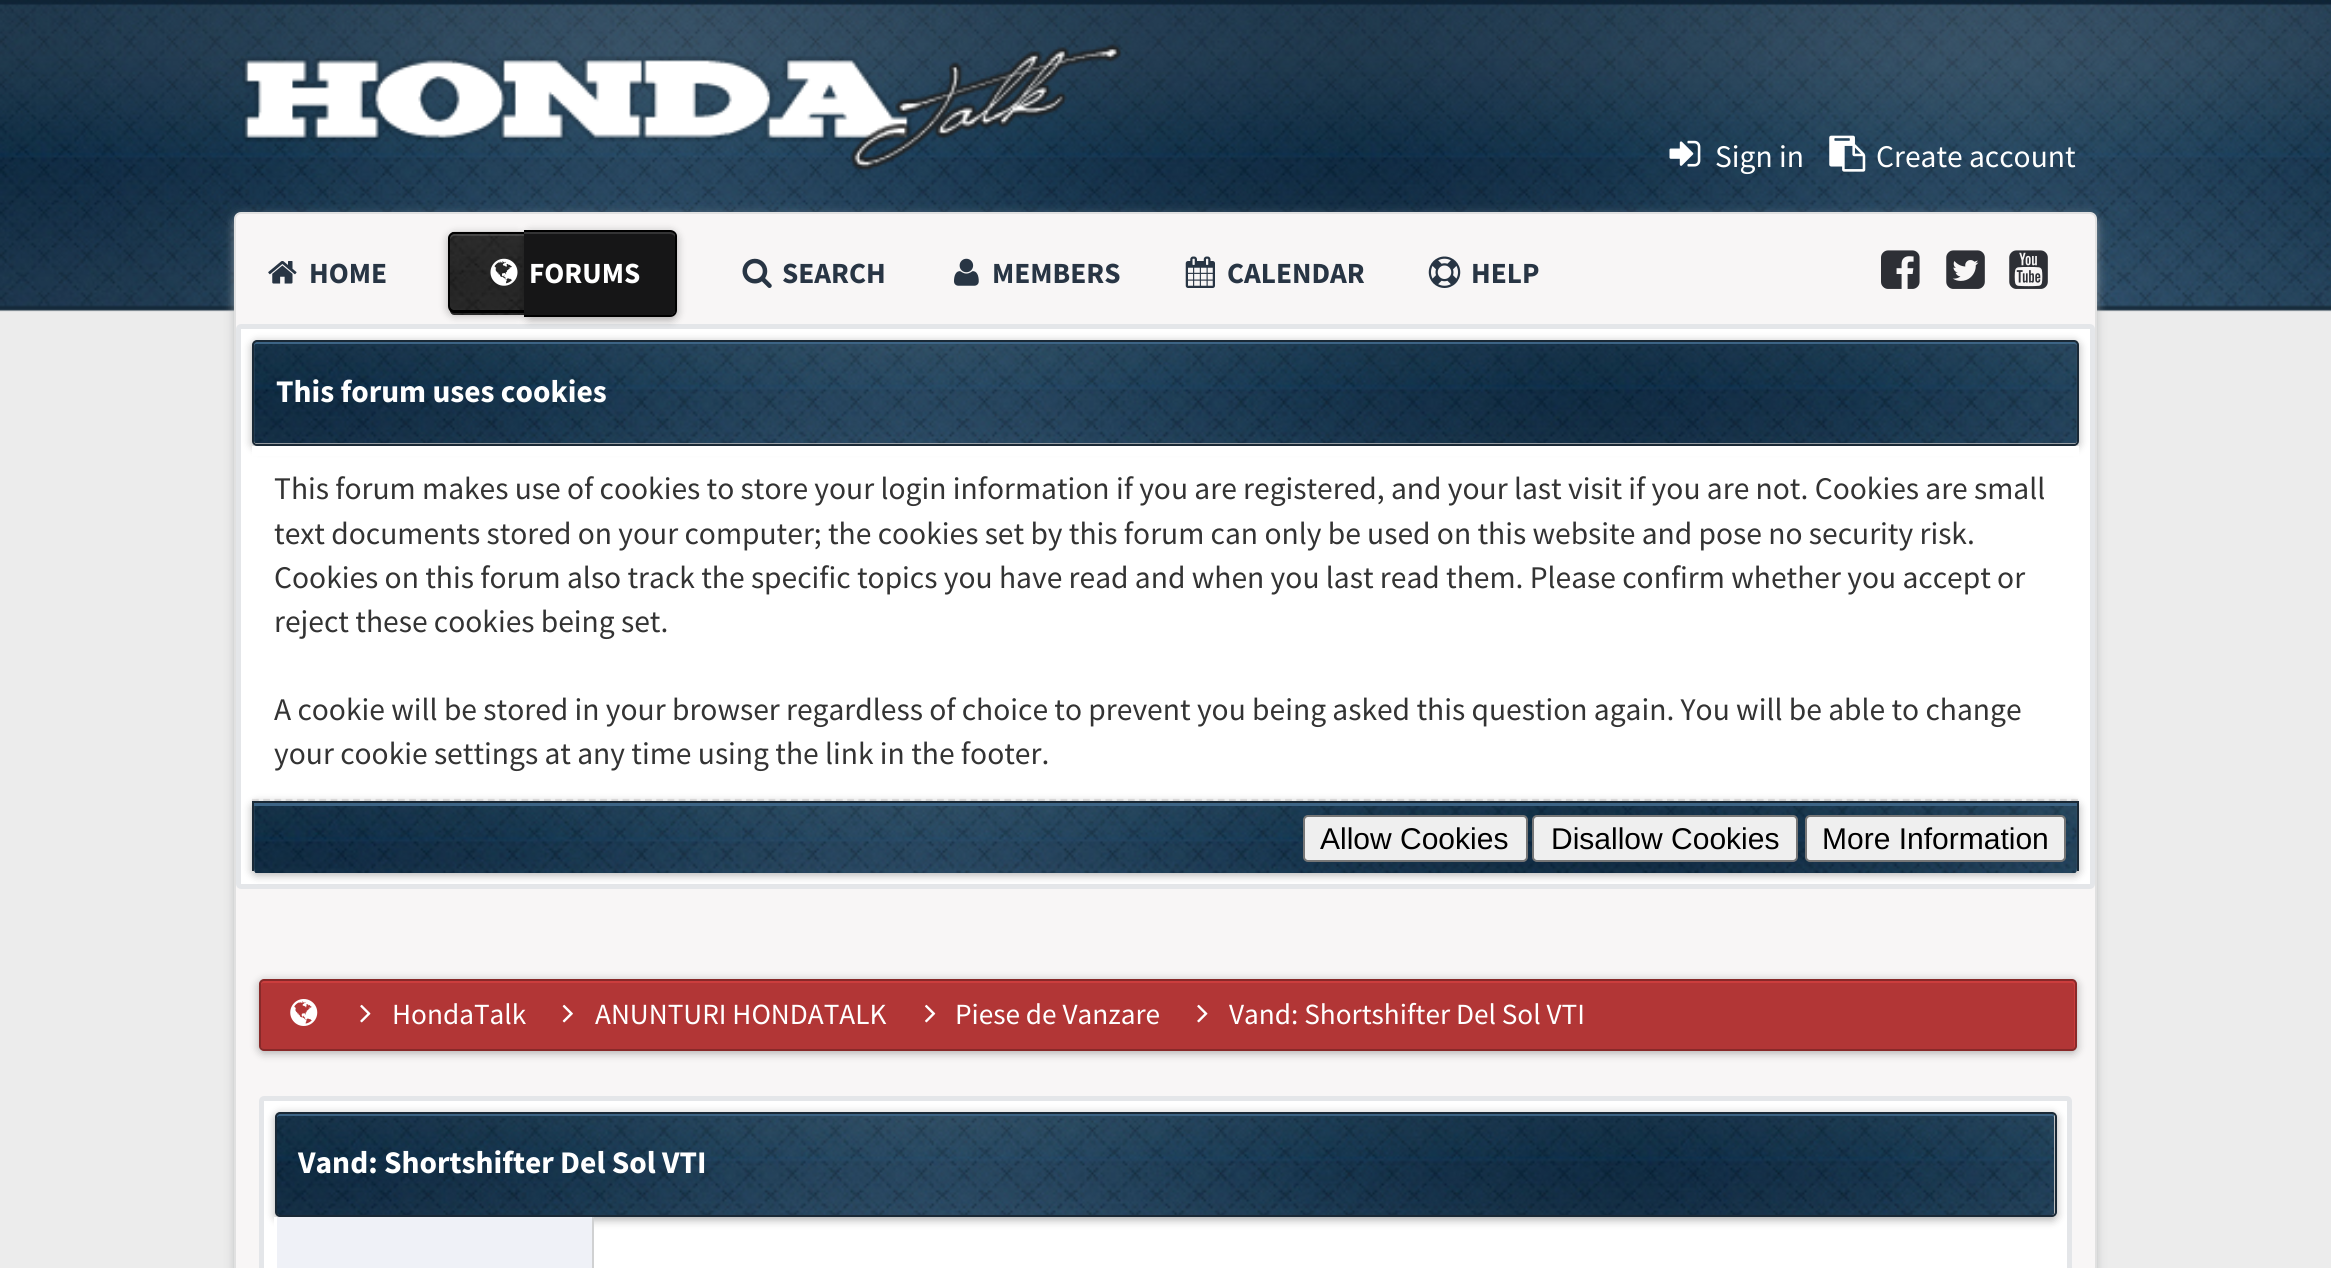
#include <cairo/cairo.h>
#include <math.h>
#include <stddef.h>

typedef struct { double x, y; const char *s; } line_t;
typedef struct { double x, y, w, h; unsigned color; } box_t;
static cairo_t *cr;

static void rgb(unsigned color)
{
	cairo_set_source_rgb(cr, (color >> 16) / 255.0, (color >> 8 & 255) / 255.0, (color & 255) / 255.0);
}

static void rrect(double x, double y, double w, double h, double r)
{
	cairo_new_sub_path(cr);
	cairo_arc(cr, x + w - r, y + h - r, r, 0, M_PI / 2);
	cairo_arc(cr, x + r, y + h - r, r, M_PI / 2, M_PI);
	cairo_arc(cr, x + r, y + r, r, M_PI, 1.5 * M_PI);
	cairo_arc(cr, x + w - r, y + r, r, 1.5 * M_PI, 2 * M_PI);
	cairo_close_path(cr);
}

static void soft_shadow(double x, double y, double w, double h, double r, double blur, double alpha)
{
	cairo_push_group_with_content(cr, CAIRO_CONTENT_ALPHA);
	cairo_set_operator(cr, CAIRO_OPERATOR_SOURCE);
	for (int i = 15; i >= -15 && fmin(w, h) + blur * i / 3 > 0; i -= 2) {
		double e = blur * i / 6;
		cairo_set_source_rgba(cr, 0, 0, 0, alpha * erfc((i - 1) / 8.5) / 2);
		rrect(x - e, y - e, w + 2 * e, h + 2 * e, fmax(0, fmin(r + e + blur * .6, fmin(w, h) / 2 + e)));
		cairo_fill(cr);
	}
	cairo_pattern_t *soft = cairo_pop_group(cr);
	cairo_mask(cr, soft);
	cairo_pattern_destroy(soft);
}

static void image(const char *path, double x, double y, double w, double h)
{
	cairo_surface_t *image = cairo_image_surface_create_from_png(path);
	cairo_save(cr);
	cairo_set_source_surface(cr, image, x, y);
	cairo_rectangle(cr, x, y, w, h);
	cairo_fill(cr);
	cairo_restore(cr);
	cairo_surface_destroy(image);
}

int main(void) {
	cairo_surface_t *surface = cairo_image_surface_create(CAIRO_FORMAT_RGB24, 2331, 1268);
	cr = cairo_create(surface);
	cairo_font_options_t *options = cairo_font_options_create();
	cairo_font_options_set_hint_metrics(options, CAIRO_HINT_METRICS_OFF);
	cairo_font_options_set_hint_style(options, CAIRO_HINT_STYLE_NONE);
	cairo_set_font_options(cr, options);
	cairo_set_miter_limit(cr, 4);
	rgb(0xececec);
	cairo_paint(cr);
	image("img/1.png", 0, 0, 2331, 312);
	image("img/2.png", 242, 44, 880, 128);
	image("img/3.png", 1669, 140, 32, 27);
	image("img/4.png", 1829, 135, 37, 37);
	rgb(0xadaeaf);
	soft_shadow(236, 218, 1859, 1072, 5, 5.5, 1);
	rgb(0xf8f6f6);
	rrect(235, 213, 1861, 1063, 6);
	cairo_fill_preserve(cr);
	rgb(0xe1e1e1);
	cairo_stroke(cr);
	image("img/5.png", 268, 261, 29, 23);
	rgb(0xffffff);
	rrect(238.5, 326.5, 1854, 560, 2.5);
	cairo_fill_preserve(cr);
	rgb(0xe4e6e9);
	cairo_set_line_width(cr, 5);
	cairo_stroke(cr);
	rgb(0x000000);
	soft_shadow(448, 234, 76, 81, 7, 4.5, 0.3);
	image("img/6.png", 450, 231, 225, 84);
	cairo_set_source_rgba(cr, 1, 1, 1, 0.13);
	cairo_new_path(cr);
	cairo_move_to(cr, 454, 236);
	cairo_line_to(cr, 524, 236);
	cairo_line_to(cr, 524, 234);
	cairo_line_to(cr, 455, 234);
	cairo_curve_to(cr, 452, 234, 450, 236, 450, 239);
	cairo_line_to(cr, 450, 241);
	cairo_curve_to(cr, 450, 238, 452, 236, 454, 236);
	cairo_close_path(cr);
	cairo_fill(cr);
	rgb(0x000000);
	cairo_set_fill_rule(cr, CAIRO_FILL_RULE_EVEN_ODD);
	cairo_new_path(cr);
	cairo_move_to(cr, 454, 232);
	cairo_line_to(cr, 524, 232);
	cairo_line_to(cr, 524, 313);
	cairo_line_to(cr, 454, 313);
	cairo_curve_to(cr, 451, 313, 448, 310, 448, 306);
	cairo_line_to(cr, 448, 238);
	cairo_curve_to(cr, 448, 235, 451, 232, 454, 232);
	cairo_close_path(cr);
	cairo_move_to(cr, 454, 234);
	cairo_line_to(cr, 524, 234);
	cairo_line_to(cr, 524, 310);
	cairo_line_to(cr, 454, 310);
	cairo_curve_to(cr, 452, 310, 450, 308, 450, 306);
	cairo_line_to(cr, 450, 238);
	cairo_curve_to(cr, 450, 236, 452, 234, 454, 234);
	cairo_close_path(cr);
	cairo_fill(cr);
	rgb(0x000000);
	soft_shadow(524, 232, 153, 88, 7, 4.5, 0.3);
	rgb(0x161617);
	cairo_new_path(cr);
	cairo_move_to(cr, 524, 232);
	cairo_line_to(cr, 670, 232);
	cairo_curve_to(cr, 673, 232, 675, 234, 675, 237);
	cairo_line_to(cr, 675, 310);
	cairo_curve_to(cr, 675, 313, 673, 315, 670, 315);
	cairo_line_to(cr, 524, 315);
	cairo_close_path(cr);
	cairo_fill(cr);
	cairo_set_source_rgba(cr, 1, 1, 1, 0.13);
	cairo_set_fill_rule(cr, CAIRO_FILL_RULE_WINDING);
	cairo_new_path(cr);
	cairo_move_to(cr, 524, 234);
	cairo_line_to(cr, 670, 234);
	cairo_curve_to(cr, 673, 234, 675, 236, 675, 238);
	cairo_line_to(cr, 675, 237);
	cairo_curve_to(cr, 675, 234, 673, 232, 670, 232);
	cairo_line_to(cr, 524, 232);
	cairo_close_path(cr);
	cairo_fill(cr);
	rgb(0x000000);
	cairo_set_fill_rule(cr, CAIRO_FILL_RULE_EVEN_ODD);
	cairo_new_path(cr);
	cairo_move_to(cr, 524, 230);
	cairo_line_to(cr, 670, 230);
	cairo_curve_to(cr, 674, 230, 677, 233, 677, 236);
	cairo_line_to(cr, 677, 310);
	cairo_curve_to(cr, 677, 314, 674, 317, 670, 317);
	cairo_line_to(cr, 524, 317);
	cairo_close_path(cr);
	cairo_move_to(cr, 524, 232);
	cairo_line_to(cr, 670, 232);
	cairo_curve_to(cr, 673, 232, 675, 234, 675, 236);
	cairo_line_to(cr, 675, 310);
	cairo_curve_to(cr, 675, 313, 673, 315, 670, 315);
	cairo_line_to(cr, 524, 315);
	cairo_close_path(cr);
	cairo_fill(cr);
	image("img/7.png", 490, 258, 28, 28);
	image("img/8.png", 742, 258, 30, 30);
	image("img/9.png", 954, 258, 25, 28);
	image("img/10.png", 1185, 256, 30, 32);
	image("img/11.png", 1428, 256, 33, 32);
	image("img/12.png", 1881, 250, 39, 39);
	image("img/13.png", 1946, 250, 39, 39);
	image("img/14.png", 2009, 250, 39, 39);
	rgb(0x000000);
	soft_shadow(252, 342, 1827, 106, 5, 4.5, 0.3);
	rgb(0x324e66);
	rrect(254, 342, 1823, 101, 2);
	cairo_fill(cr);
	image("img/15.png", 254, 342, 1823, 102);
	rgb(0x3d6485);
	cairo_set_fill_rule(cr, CAIRO_FILL_RULE_WINDING);
	cairo_new_path(cr);
	cairo_move_to(cr, 256, 344);
	cairo_line_to(cr, 2074, 344);
	cairo_curve_to(cr, 2076, 344, 2077, 345, 2077, 346);
	cairo_line_to(cr, 2077, 344);
	cairo_curve_to(cr, 2077, 343, 2076, 342, 2075, 342);
	cairo_line_to(cr, 256, 342);
	cairo_line_to(cr, 254, 343);
	cairo_line_to(cr, 254, 346);
	cairo_curve_to(cr, 254, 345, 255, 344, 256, 344);
	cairo_close_path(cr);
	cairo_fill(cr);
	rrect(253, 341, 1825, 104, 4);
	rgb(0x1a2936);
	cairo_set_line_width(cr, 2);
	cairo_stroke(cr);
	rgb(0xffffff);
	cairo_rectangle(cr, 252, 446, 1827, 10);
	cairo_fill(cr);
	cairo_new_path(cr);
	cairo_move_to(cr, 252, 800);
	cairo_line_to(cr, 2079, 800);
	rgb(0xe7e6e6);
	cairo_set_line_width(cr, 2.2);
	cairo_set_dash(cr, (double[]){6.75, 4.48}, 2, 0);
	cairo_stroke(cr);
	rgb(0x000000);
	soft_shadow(252, 803, 1827, 72, 5, 4.5, 0.3);
	rgb(0x324e66);
	cairo_new_path(cr);
	cairo_move_to(cr, 254, 803);
	cairo_line_to(cr, 2077, 803);
	cairo_line_to(cr, 2077, 868);
	cairo_curve_to(cr, 2077, 871, 2076, 873, 2074, 873);
	cairo_line_to(cr, 256, 873);
	cairo_curve_to(cr, 255, 873, 254, 871, 254, 868);
	cairo_close_path(cr);
	cairo_fill(cr);
	image("img/16.png", 254, 806, 1823, 67);
	{
		static const box_t items[] = {
			{254, 803, 1823, 3, 0x3d6485},
			{252, 801, 1827, 2, 0x1a2936},
			{2077, 801, 2, 70, 0x1a2936},
			{252, 801, 2, 70, 0x1a2936},
		};
		for (size_t i = 0; i < sizeof items / sizeof *items; i++) {
			rgb(items[i].color);
			cairo_rectangle(cr, items[i].x, items[i].y, items[i].w, items[i].h);
			cairo_fill(cr);
		}
	}
	rgb(0xefefef);
	rrect(1304, 816, 223, 45, 4);
	cairo_fill_preserve(cr);
	rgb(0x767676);
	cairo_set_line_width(cr, 2);
	cairo_set_dash(cr, NULL, 0, 0);
	cairo_stroke(cr);
	rgb(0xefefef);
	rrect(1533, 816, 264, 45, 4);
	cairo_fill_preserve(cr);
	rgb(0x767676);
	cairo_stroke(cr);
	rgb(0xefefef);
	rrect(1806, 816, 259, 45, 4);
	cairo_fill_preserve(cr);
	rgb(0x767676);
	cairo_stroke(cr);
	rgb(0x000000);
	soft_shadow(259, 981, 1818, 72, 5, 4.5, 0.3);
	rgb(0xb23636);
	rrect(261, 981, 1814, 68, 2);
	cairo_fill(cr);
	rgb(0xcc3d3d);
	cairo_new_path(cr);
	cairo_move_to(cr, 263, 983);
	cairo_line_to(cr, 2072, 983);
	cairo_curve_to(cr, 2073, 983, 2074, 984, 2074, 986);
	cairo_line_to(cr, 2074, 1049);
	cairo_curve_to(cr, 2075, 1048, 2075, 1048, 2075, 1047);
	cairo_line_to(cr, 2075, 983);
	cairo_curve_to(cr, 2075, 982, 2074, 981, 2073, 981);
	cairo_line_to(cr, 263, 981);
	cairo_curve_to(cr, 262, 981, 261, 982, 261, 983);
	cairo_line_to(cr, 261, 986);
	cairo_curve_to(cr, 261, 984, 262, 983, 263, 983);
	cairo_close_path(cr);
	cairo_fill(cr);
	rrect(260, 980, 1816, 70, 4);
	rgb(0x882929);
	cairo_stroke(cr);
	image("img/17.png", 290, 999, 28, 27);
	image("img/18.png", 360, 1004, 11, 19);
	image("img/19.png", 562, 1004, 11, 19);
	image("img/20.png", 925, 1004, 11, 19);
	image("img/18.png", 1197, 1004, 11, 19);
	rgb(0xffffff);
	rrect(261.5, 1098.5, 1808, 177, 2.5);
	cairo_fill_preserve(cr);
	rgb(0xe4e6e9);
	cairo_set_line_width(cr, 5);
	cairo_stroke(cr);
	rgb(0x000000);
	soft_shadow(275, 1114, 1782, 106, 5, 4.5, 0.3);
	image("img/21.png", 277, 1114, 1778, 101);
	rgb(0x3d6485);
	cairo_new_path(cr);
	cairo_move_to(cr, 279, 1116);
	cairo_line_to(cr, 2052, 1116);
	cairo_curve_to(cr, 2053, 1116, 2054, 1117, 2054, 1118);
	cairo_line_to(cr, 2054, 1116);
	cairo_curve_to(cr, 2054, 1115, 2053, 1114, 2052, 1114);
	cairo_line_to(cr, 279, 1114);
	cairo_line_to(cr, 277, 1115);
	cairo_line_to(cr, 277, 1118);
	cairo_curve_to(cr, 277, 1117, 278, 1116, 279, 1116);
	cairo_close_path(cr);
	cairo_fill(cr);
	rrect(276, 1113, 1780, 103, 4);
	rgb(0x1a2936);
	cairo_set_line_width(cr, 2);
	cairo_stroke(cr);
	rgb(0xeff1f7);
	cairo_rectangle(cr, 277, 1217, 315, 51);
	cairo_fill(cr);
	rgb(0xd0d1d2);
	cairo_rectangle(cr, 592, 1217, 2, 51);
	cairo_fill(cr);
	rgb(0xffffff);
	cairo_new_path(cr);
	cairo_move_to(cr, 278, 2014);
	cairo_curve_to(cr, 276, 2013, 275, 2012, 274, 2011);
	cairo_line_to(cr, 274, 1217);
	cairo_line_to(cr, 277, 1217);
	cairo_line_to(cr, 277, 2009);
	cairo_curve_to(cr, 277, 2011, 278, 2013, 278, 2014);
	cairo_close_path(cr);
	cairo_fill(cr);
	cairo_select_font_face(cr, "Source Sans Pro", CAIRO_FONT_SLANT_NORMAL, CAIRO_FONT_WEIGHT_NORMAL);
	cairo_set_font_size(cr, 31.5);
	cairo_move_to(cr, 1715, 167);
	cairo_show_text(cr, "Sign in");
	cairo_move_to(cr, 1876, 167);
	cairo_show_text(cr, "Create account");
	cairo_select_font_face(cr, "Source Sans Pro", CAIRO_FONT_SLANT_NORMAL, CAIRO_FONT_WEIGHT_BOLD);
	cairo_set_font_size(cr, 29.25);
	rgb(0x283544);
	cairo_move_to(cr, 309, 283);
	cairo_show_text(cr, "HOME");
	rgb(0xffffff);
	cairo_move_to(cr, 529, 283);
	cairo_show_text(cr, "FORUMS");
	rgb(0x283544);
	{
		static const line_t items[] = {
			{782, 283, "SEARCH"},
			{992, 283, "MEMBERS"},
			{1227, 283, "CALENDAR"},
			{1471, 283, "HELP"},
		};
		for (size_t i = 0; i < sizeof items / sizeof *items; i++) {
			cairo_move_to(cr, items[i].x, items[i].y);
			cairo_show_text(cr, items[i].s);
		}
	}
	cairo_set_font_size(cr, 31.5);
	rgb(0xffffff);
	cairo_move_to(cr, 276, 402);
	cairo_show_text(cr, "This forum uses cookies");
	cairo_select_font_face(cr, "Source Sans Pro", CAIRO_FONT_SLANT_NORMAL, CAIRO_FONT_WEIGHT_NORMAL);
	rgb(0x333333);
	{
		static const line_t items[] = {
			{274, 499, "This forum makes use of cookies to store your login information if you are registered, and your last visit if you are not. Cookies are small"},
			{274, 544, "text documents stored on your computer; the cookies set by this forum can only be used on this website and pose no security risk."},
			{274, 588, "Cookies on this forum also track the specific topics you have read and when you last read them. Please confirm whether you accept or"},
			{274, 632, "reject these cookies being set."},
			{274, 720, "A cookie will be stored in your browser regardless of choice to prevent you being asked this question again. You will be able to change"},
			{274, 764, "your cookie settings at any time using the link in the footer."},
		};
		for (size_t i = 0; i < sizeof items / sizeof *items; i++) {
			cairo_move_to(cr, items[i].x, items[i].y);
			cairo_show_text(cr, items[i].s);
		}
	}
	cairo_select_font_face(cr, "Liberation Sans", CAIRO_FONT_SLANT_NORMAL, CAIRO_FONT_WEIGHT_NORMAL);
	cairo_set_font_size(cr, 30);
	rgb(0x000000);
	{
		static const line_t items[] = {
			{1320, 849, "Allow Cookies"},
			{1551, 849, "Disallow Cookies"},
			{1822, 849, "More Information"},
		};
		for (size_t i = 0; i < sizeof items / sizeof *items; i++) {
			cairo_move_to(cr, items[i].x, items[i].y);
			cairo_show_text(cr, items[i].s);
		}
	}
	cairo_select_font_face(cr, "Source Sans Pro", CAIRO_FONT_SLANT_NORMAL, CAIRO_FONT_WEIGHT_NORMAL);
	cairo_set_font_size(cr, 29.25);
	rgb(0xffffff);
	{
		static const line_t items[] = {
			{392, 1024, "HondaTalk"},
			{595, 1024, "ANUNTURI HONDATALK"},
			{955, 1024, "Piese de Vanzare"},
			{1229, 1024, "Vand: Shortshifter Del Sol VTI"},
		};
		for (size_t i = 0; i < sizeof items / sizeof *items; i++) {
			cairo_move_to(cr, items[i].x, items[i].y);
			cairo_show_text(cr, items[i].s);
		}
	}
	cairo_select_font_face(cr, "Source Sans Pro", CAIRO_FONT_SLANT_NORMAL, CAIRO_FONT_WEIGHT_BOLD);
	cairo_set_font_size(cr, 31.5);
	cairo_move_to(cr, 298, 1173);
	cairo_show_text(cr, "Vand: Shortshifter Del Sol VTI");
	cairo_surface_write_to_png(surface, "page.png");
	cairo_font_options_destroy(options);
	cairo_destroy(cr);
	cairo_surface_destroy(surface);
	return 0;
}
